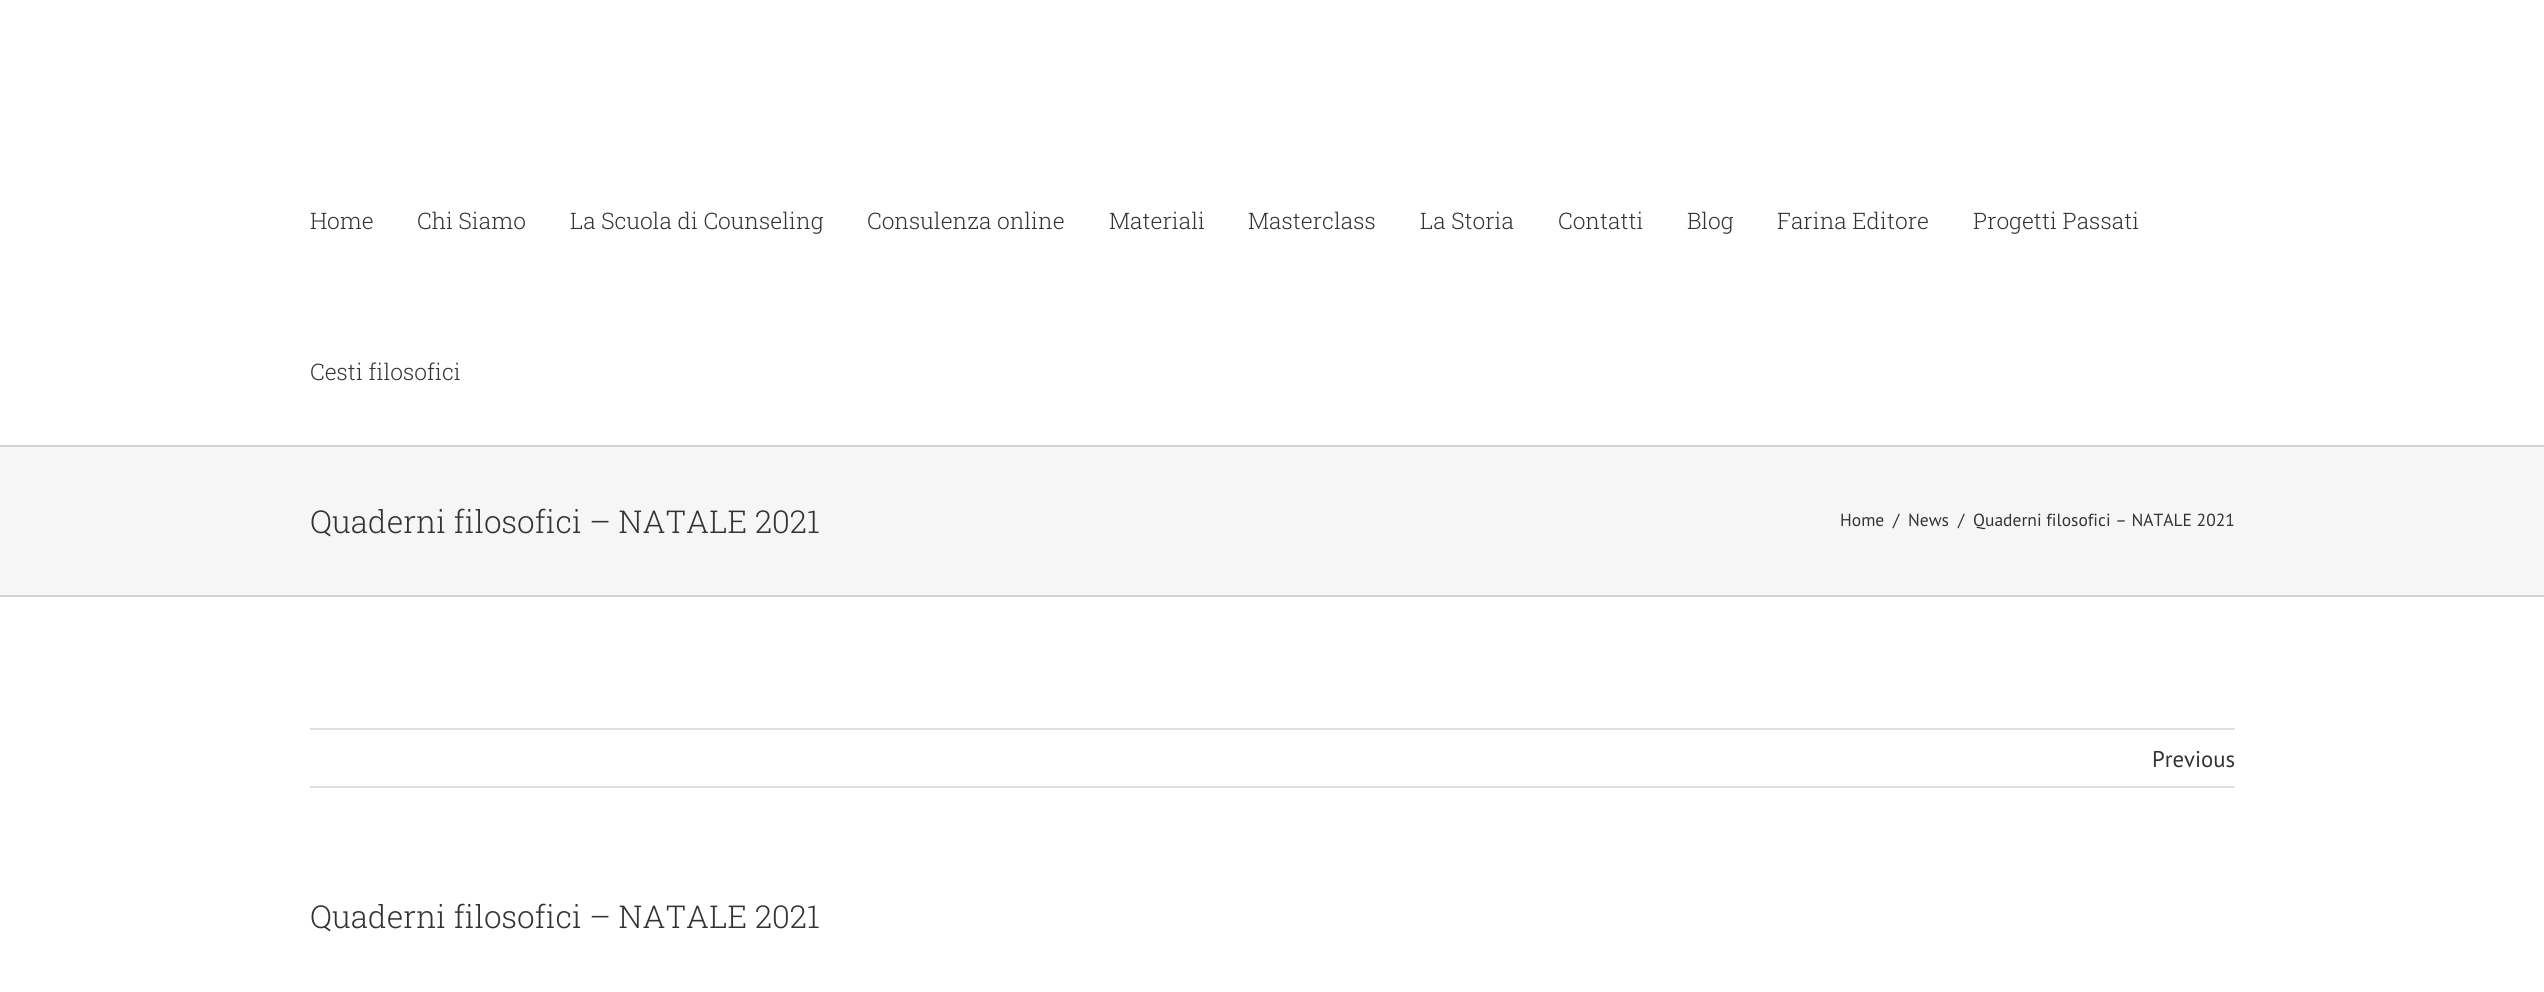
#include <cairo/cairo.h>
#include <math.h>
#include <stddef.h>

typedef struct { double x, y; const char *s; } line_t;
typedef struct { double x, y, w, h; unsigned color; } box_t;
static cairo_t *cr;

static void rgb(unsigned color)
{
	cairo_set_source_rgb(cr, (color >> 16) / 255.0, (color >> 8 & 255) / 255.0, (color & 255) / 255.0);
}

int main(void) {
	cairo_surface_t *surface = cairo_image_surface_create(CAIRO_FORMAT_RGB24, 2544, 992);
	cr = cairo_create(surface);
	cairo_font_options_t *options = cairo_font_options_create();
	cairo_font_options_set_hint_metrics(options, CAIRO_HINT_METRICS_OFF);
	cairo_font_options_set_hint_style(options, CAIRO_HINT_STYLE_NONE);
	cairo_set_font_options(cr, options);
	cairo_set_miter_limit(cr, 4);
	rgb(0xffffff);
	cairo_paint(cr);
	{
		static const box_t items[] = {
			{0, 447, 2544, 148, 0xf6f6f6},
			{0, 445, 2544, 2, 0xd2d3d4},
			{0, 595, 2544, 2, 0xd2d3d4},
			{310, 728, 1925, 2, 0xe0dede},
			{310, 786, 1925, 2, 0xe0dede},
		};
		for (size_t i = 0; i < sizeof items / sizeof *items; i++) {
			rgb(items[i].color);
			cairo_rectangle(cr, items[i].x, items[i].y, items[i].w, items[i].h);
			cairo_fill(cr);
		}
	}
	cairo_select_font_face(cr, "Roboto Slab Light", CAIRO_FONT_SLANT_NORMAL, CAIRO_FONT_WEIGHT_NORMAL);
	cairo_set_font_size(cr, 22.75);
	rgb(0x333333);
	{
		static const line_t items[] = {
			{310, 229, "Home"},
			{417, 229, "Chi Siamo"},
			{570, 229, "La Scuola di Counseling"},
			{867, 229, "Consulenza online"},
			{1109, 229, "Materiali"},
			{1248, 229, "Masterclass"},
			{1420, 229, "La Storia"},
			{1558, 229, "Contatti"},
			{1687, 229, "Blog"},
			{1777, 229, "Farina Editore"},
			{1973, 229, "Progetti Passati"},
			{310, 380, "Cesti filosofici"},
		};
		for (size_t i = 0; i < sizeof items / sizeof *items; i++) {
			cairo_move_to(cr, items[i].x, items[i].y);
			cairo_show_text(cr, items[i].s);
		}
	}
	cairo_set_font_size(cr, 31.5);
	cairo_move_to(cr, 310, 533);
	cairo_show_text(cr, "Quaderni filosofici – NATALE 2021");
	cairo_select_font_face(cr, "PT Sans", CAIRO_FONT_SLANT_NORMAL, CAIRO_FONT_WEIGHT_NORMAL);
	cairo_set_font_size(cr, 17.5);
	{
		static const line_t items[] = {
			{1840, 526, "Home"},
			{1893, 526, "/"},
			{1908, 526, "News"},
			{1958, 526, "/"},
			{1973, 526, "Quaderni filosofici – NATALE 2021"},
		};
		for (size_t i = 0; i < sizeof items / sizeof *items; i++) {
			cairo_move_to(cr, items[i].x, items[i].y);
			cairo_show_text(cr, items[i].s);
		}
	}
	cairo_set_font_size(cr, 22.75);
	cairo_move_to(cr, 2152, 767);
	cairo_show_text(cr, "Previous");
	cairo_select_font_face(cr, "Roboto Slab Light", CAIRO_FONT_SLANT_NORMAL, CAIRO_FONT_WEIGHT_NORMAL);
	cairo_set_font_size(cr, 31.5);
	cairo_move_to(cr, 310, 928);
	cairo_show_text(cr, "Quaderni filosofici – NATALE 2021");
	cairo_surface_write_to_png(surface, "page.png");
	cairo_font_options_destroy(options);
	cairo_destroy(cr);
	cairo_surface_destroy(surface);
	return 0;
}
